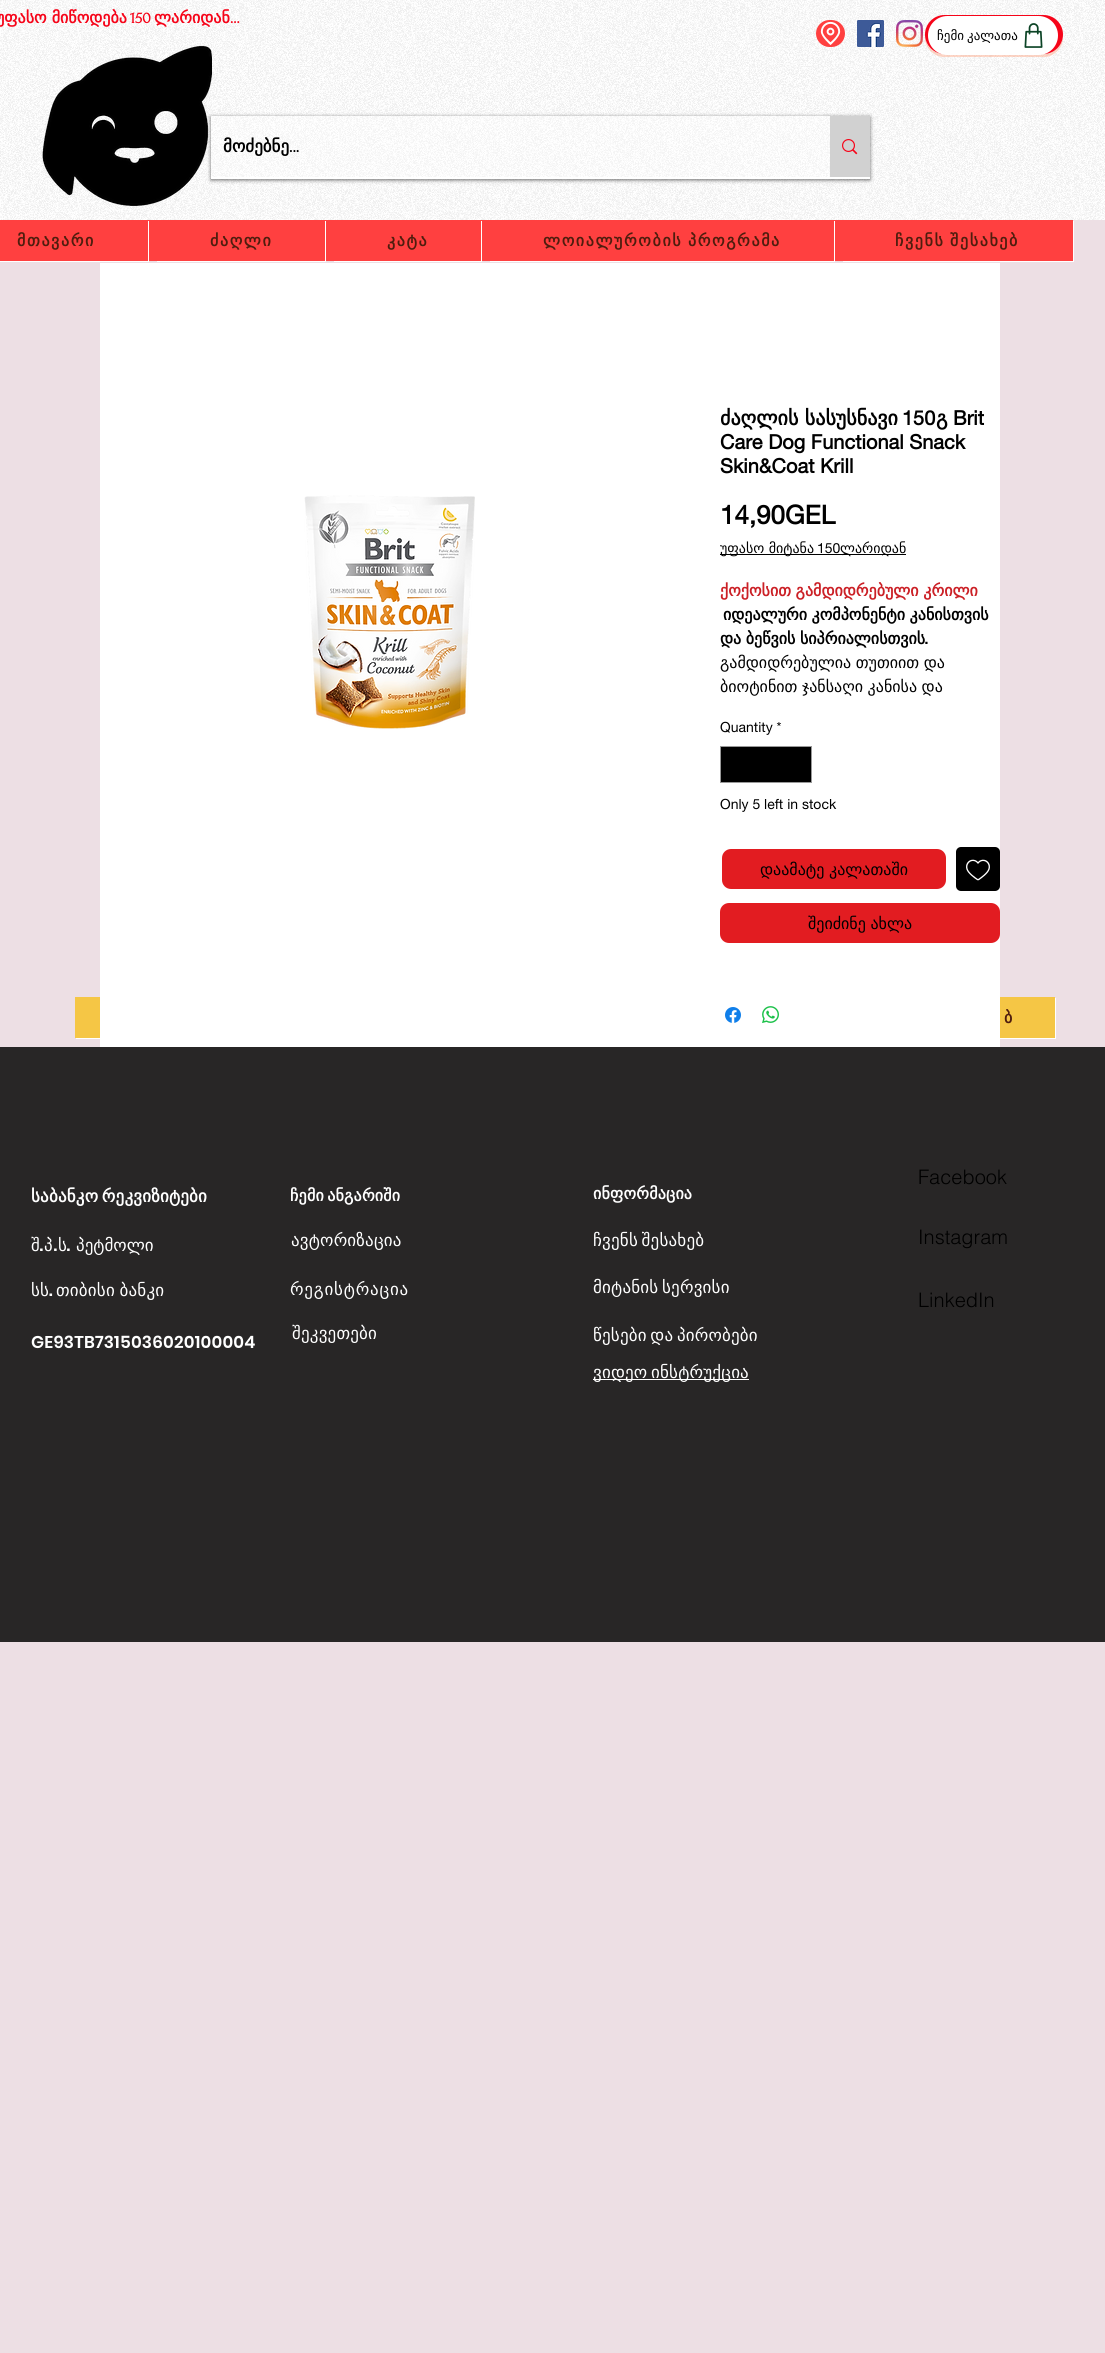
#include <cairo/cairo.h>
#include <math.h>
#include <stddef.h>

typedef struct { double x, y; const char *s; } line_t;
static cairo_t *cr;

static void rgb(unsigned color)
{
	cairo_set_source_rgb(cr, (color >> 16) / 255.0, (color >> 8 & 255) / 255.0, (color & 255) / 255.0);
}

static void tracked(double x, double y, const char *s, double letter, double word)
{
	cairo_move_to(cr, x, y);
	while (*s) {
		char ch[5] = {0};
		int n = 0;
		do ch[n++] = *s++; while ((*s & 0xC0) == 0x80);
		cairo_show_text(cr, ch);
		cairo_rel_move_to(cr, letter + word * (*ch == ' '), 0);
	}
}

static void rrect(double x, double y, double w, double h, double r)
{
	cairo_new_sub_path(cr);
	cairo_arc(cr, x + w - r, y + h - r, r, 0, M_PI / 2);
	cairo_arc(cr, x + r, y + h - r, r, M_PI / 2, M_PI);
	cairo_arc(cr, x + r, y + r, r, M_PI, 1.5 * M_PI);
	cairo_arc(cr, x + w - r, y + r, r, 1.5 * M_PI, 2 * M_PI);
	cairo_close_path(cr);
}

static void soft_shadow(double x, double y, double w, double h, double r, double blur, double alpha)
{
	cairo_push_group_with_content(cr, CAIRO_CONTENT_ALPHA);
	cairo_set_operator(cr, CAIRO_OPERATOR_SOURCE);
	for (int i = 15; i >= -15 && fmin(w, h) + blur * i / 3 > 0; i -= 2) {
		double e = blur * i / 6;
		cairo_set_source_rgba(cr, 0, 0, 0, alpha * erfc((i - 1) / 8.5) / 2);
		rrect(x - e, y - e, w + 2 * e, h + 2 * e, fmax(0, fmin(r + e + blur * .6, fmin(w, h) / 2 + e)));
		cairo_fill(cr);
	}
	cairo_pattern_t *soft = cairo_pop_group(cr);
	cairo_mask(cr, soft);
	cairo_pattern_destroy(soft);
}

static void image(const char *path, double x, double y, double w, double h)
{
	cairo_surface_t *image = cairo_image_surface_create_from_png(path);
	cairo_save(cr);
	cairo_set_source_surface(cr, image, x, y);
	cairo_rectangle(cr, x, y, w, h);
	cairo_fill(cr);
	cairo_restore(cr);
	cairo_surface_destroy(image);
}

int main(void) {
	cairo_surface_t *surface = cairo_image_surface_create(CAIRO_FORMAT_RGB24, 1105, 2353);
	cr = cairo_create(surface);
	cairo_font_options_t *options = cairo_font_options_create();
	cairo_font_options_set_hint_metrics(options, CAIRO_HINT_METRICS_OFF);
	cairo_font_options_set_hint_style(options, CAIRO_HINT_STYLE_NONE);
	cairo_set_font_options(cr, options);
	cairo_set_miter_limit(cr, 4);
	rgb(0xeddfe4);
	cairo_paint(cr);
	rgb(0xffffff);
	cairo_rectangle(cr, 0, 0, 1105, 220);
	cairo_fill(cr);
	image("img/1.png", 0, 0, 1105, 220);
	rgb(0xff4040);
	rrect(816, 20, 29, 27, 13.5);
	cairo_fill(cr);
	image("img/2.png", 820, 21, 21, 24);
	image("img/3.png", 857, 20, 27, 27);
	image("img/4.png", 896, 20, 27, 27);
	cairo_set_source_rgba(cr, 1, 0.549, 0.384, 0.35);
	cairo_new_path(cr);
	cairo_move_to(cr, 925, 36);
	cairo_line_to(cr, 925, 38);
	cairo_curve_to(cr, 925, 48, 934, 57, 944, 57);
	cairo_line_to(cr, 1044, 57);
	cairo_curve_to(cr, 1054, 57, 1063, 48, 1063, 38);
	cairo_line_to(cr, 1063, 36);
	cairo_curve_to(cr, 1062, 46, 1054, 54, 1044, 54);
	cairo_line_to(cr, 944, 54);
	cairo_curve_to(cr, 934, 54, 926, 46, 925, 36);
	cairo_close_path(cr);
	cairo_fill(cr);
	rgb(0xf60419);
	rrect(925, 15, 138, 39, 19.5);
	cairo_fill(cr);
	image("img/5.png", 42, 45, 170, 161);
	cairo_save(cr);
	cairo_set_fill_rule(cr, CAIRO_FILL_RULE_EVEN_ODD);
	cairo_new_path(cr);
	cairo_move_to(cr, 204, 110);
	cairo_line_to(cr, 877, 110);
	cairo_line_to(cr, 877, 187);
	cairo_line_to(cr, 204, 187);
	cairo_close_path(cr);
	cairo_move_to(cr, 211, 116);
	cairo_line_to(cr, 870, 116);
	cairo_line_to(cr, 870, 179);
	cairo_line_to(cr, 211, 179);
	cairo_close_path(cr);
	cairo_clip(cr);
	rgb(0x000000);
	soft_shadow(211, 117, 659, 63, 0, 2, 0.6);
	cairo_restore(cr);
	rgb(0xffffff);
	cairo_rectangle(cr, 211, 177, 659, 2);
	cairo_fill(cr);
	cairo_set_source_rgba(cr, 1, 1, 1, 0.29);
	cairo_rectangle(cr, 211, 116, 619, 61);
	cairo_fill(cr);
	rgb(0xd1d1d1);
	cairo_rectangle(cr, 830, 116, 40, 61);
	cairo_fill(cr);
	image("img/6.png", 842, 139, 16, 16);
	rgb(0xffffff);
	rrect(928, 16, 130, 39, 19.5);
	cairo_fill(cr);
	image("img/7.png", 1024, 23, 19, 25);
	rgb(0xff4040);
	cairo_rectangle(cr, 0, 220, 1073, 41);
	cairo_fill(cr);
	rgb(0xffffff);
	cairo_new_path(cr);
	cairo_move_to(cr, -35, 261);
	cairo_line_to(cr, -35, 262);
	cairo_line_to(cr, 149, 262);
	cairo_line_to(cr, 149, 221);
	cairo_line_to(cr, 148, 221);
	cairo_line_to(cr, 148, 261);
	cairo_close_path(cr);
	cairo_fill(cr);
	cairo_new_path(cr);
	cairo_move_to(cr, 157, 261);
	cairo_line_to(cr, 157, 262);
	cairo_line_to(cr, 326, 262);
	cairo_line_to(cr, 326, 221);
	cairo_line_to(cr, 325, 221);
	cairo_line_to(cr, 325, 261);
	cairo_close_path(cr);
	cairo_fill(cr);
	cairo_new_path(cr);
	cairo_move_to(cr, 334, 261);
	cairo_line_to(cr, 334, 262);
	cairo_line_to(cr, 482, 262);
	cairo_line_to(cr, 482, 221);
	cairo_line_to(cr, 481, 221);
	cairo_line_to(cr, 481, 261);
	cairo_close_path(cr);
	cairo_fill(cr);
	cairo_new_path(cr);
	cairo_move_to(cr, 490, 261);
	cairo_line_to(cr, 490, 262);
	cairo_line_to(cr, 835, 262);
	cairo_line_to(cr, 835, 221);
	cairo_line_to(cr, 834, 221);
	cairo_line_to(cr, 834, 261);
	cairo_close_path(cr);
	cairo_fill(cr);
	cairo_new_path(cr);
	cairo_move_to(cr, 843, 261);
	cairo_line_to(cr, 843, 262);
	cairo_line_to(cr, 1074, 262);
	cairo_line_to(cr, 1074, 221);
	cairo_line_to(cr, 1073, 221);
	cairo_line_to(cr, 1073, 261);
	cairo_close_path(cr);
	cairo_fill(cr);
	rgb(0xf5c645);
	cairo_rectangle(cr, 75, 997, 980, 41);
	cairo_fill(cr);
	rgb(0xffffff);
	cairo_new_path(cr);
	cairo_move_to(cr, 76, 1038);
	cairo_line_to(cr, 76, 1039);
	cairo_line_to(cr, 234, 1039);
	cairo_line_to(cr, 234, 998);
	cairo_line_to(cr, 233, 998);
	cairo_line_to(cr, 233, 1038);
	cairo_close_path(cr);
	cairo_fill(cr);
	cairo_new_path(cr);
	cairo_move_to(cr, 851, 1038);
	cairo_line_to(cr, 851, 1039);
	cairo_line_to(cr, 1056, 1039);
	cairo_line_to(cr, 1056, 998);
	cairo_line_to(cr, 1055, 998);
	cairo_line_to(cr, 1055, 1038);
	cairo_close_path(cr);
	cairo_fill(cr);
	cairo_rectangle(cr, 100, 263, 900, 784);
	cairo_fill(cr);
	image("img/8.png", 304, 495, 171, 234);
	rgb(0x000000);
	cairo_rectangle(cr, 720, 554, 186, 1);
	cairo_fill(cr);
	cairo_rectangle(cr, 720.5, 746.5, 91, 36);
	cairo_fill_preserve(cr);
	rgb(0x999999);
	cairo_set_line_width(cr, 1);
	cairo_stroke(cr);
	rgb(0xe21c21);
	rrect(721, 848, 226, 42, 10);
	cairo_fill_preserve(cr);
	rgb(0xffffff);
	cairo_set_line_width(cr, 2);
	cairo_stroke(cr);
	rgb(0x000000);
	rrect(956, 847, 44, 44, 5);
	cairo_fill(cr);
	image("img/9.png", 966, 859, 24, 22);
	rgb(0xe21c21);
	rrect(720, 903, 280, 40, 9);
	cairo_fill(cr);
	image("img/10.png", 725, 1007, 16, 16);
	image("img/11.png", 762, 1006, 17, 17);
	rgb(0x282626);
	cairo_rectangle(cr, 0, 1047, 1105, 595);
	cairo_fill(cr);
	rgb(0xffffff);
	cairo_rectangle(cr, 593, 1379, 156, 1);
	cairo_fill(cr);
	cairo_select_font_face(cr, "DejaVu Sans", CAIRO_FONT_SLANT_NORMAL, CAIRO_FONT_WEIGHT_BOLD);
	cairo_set_font_size(cr, 16);
	rgb(0xf60419);
	cairo_move_to(cr, -4, 23);
	cairo_show_text(cr, "უფასო მიწოდება");
	cairo_select_font_face(cr, "Forum", CAIRO_FONT_SLANT_NORMAL, CAIRO_FONT_WEIGHT_BOLD);
	cairo_move_to(cr, 130, 23);
	cairo_show_text(cr, "150");
	cairo_select_font_face(cr, "DejaVu Sans", CAIRO_FONT_SLANT_NORMAL, CAIRO_FONT_WEIGHT_BOLD);
	cairo_move_to(cr, 154, 23);
	cairo_show_text(cr, "ლარიდან");
	cairo_select_font_face(cr, "Forum", CAIRO_FONT_SLANT_NORMAL, CAIRO_FONT_WEIGHT_BOLD);
	cairo_move_to(cr, 230, 23);
	cairo_show_text(cr, "...");
	cairo_select_font_face(cr, "DejaVu Sans", CAIRO_FONT_SLANT_NORMAL, CAIRO_FONT_WEIGHT_BOLD);
	cairo_set_font_size(cr, 17);
	rgb(0x000000);
	cairo_move_to(cr, 223, 152);
	cairo_show_text(cr, "მოძებნე");
	cairo_select_font_face(cr, "Forum", CAIRO_FONT_SLANT_NORMAL, CAIRO_FONT_WEIGHT_BOLD);
	cairo_move_to(cr, 289, 152);
	cairo_show_text(cr, "...");
	cairo_select_font_face(cr, "DejaVu Sans", CAIRO_FONT_SLANT_NORMAL, CAIRO_FONT_WEIGHT_NORMAL);
	cairo_set_font_size(cr, 13);
	tracked(937, 40, "ჩემი კალათა", 0, -1);
	cairo_select_font_face(cr, "DejaVu Sans", CAIRO_FONT_SLANT_NORMAL, CAIRO_FONT_WEIGHT_BOLD);
	cairo_set_font_size(cr, 16);
	rgb(0x4f1d0e);
	{
		static const line_t items[] = {
			{17, 246, "მთავარი"},
			{210, 246, "ძაღლი"},
			{387, 246, "კატა"},
		};
		for (size_t i = 0; i < sizeof items / sizeof *items; i++) {
			tracked(items[i].x, items[i].y, items[i].s, 1.6, 0);
		}
	}
	tracked(543, 246, "ლოიალურობის პროგრამა", 1.6, -1);
	tracked(895, 246, "ჩვენს შესახებ", 1.6, -1);
	cairo_set_font_size(cr, 20);
	rgb(0x000000);
	cairo_move_to(cr, 720, 425);
	cairo_show_text(cr, "ძაღლის სასუსნავი");
	cairo_select_font_face(cr, "helvetica neue", CAIRO_FONT_SLANT_NORMAL, CAIRO_FONT_WEIGHT_BOLD);
	cairo_move_to(cr, 902, 425);
	cairo_show_text(cr, "150");
	cairo_select_font_face(cr, "DejaVu Sans", CAIRO_FONT_SLANT_NORMAL, CAIRO_FONT_WEIGHT_BOLD);
	cairo_move_to(cr, 936, 425);
	cairo_show_text(cr, "გ");
	cairo_select_font_face(cr, "helvetica neue", CAIRO_FONT_SLANT_NORMAL, CAIRO_FONT_WEIGHT_BOLD);
	{
		static const line_t items[] = {
			{953, 425, "Brit"},
			{720, 449, "Care Dog Functional Snack"},
			{720, 473, "Skin&Coat Krill"},
		};
		for (size_t i = 0; i < sizeof items / sizeof *items; i++) {
			cairo_move_to(cr, items[i].x, items[i].y);
			cairo_show_text(cr, items[i].s);
		}
	}
	cairo_set_font_size(cr, 26);
	cairo_move_to(cr, 720, 524);
	cairo_show_text(cr, "14,90GEL");
	cairo_select_font_face(cr, "DejaVu Sans", CAIRO_FONT_SLANT_NORMAL, CAIRO_FONT_WEIGHT_NORMAL);
	cairo_set_font_size(cr, 14);
	cairo_move_to(cr, 720, 553);
	cairo_show_text(cr, "უფასო მიტანა");
	cairo_select_font_face(cr, "helvetica neue", CAIRO_FONT_SLANT_NORMAL, CAIRO_FONT_WEIGHT_NORMAL);
	cairo_move_to(cr, 817, 553);
	cairo_show_text(cr, "150");
	cairo_select_font_face(cr, "DejaVu Sans", CAIRO_FONT_SLANT_NORMAL, CAIRO_FONT_WEIGHT_NORMAL);
	cairo_move_to(cr, 840, 553);
	cairo_show_text(cr, "ლარიდან");
	cairo_select_font_face(cr, "DejaVu Sans", CAIRO_FONT_SLANT_NORMAL, CAIRO_FONT_WEIGHT_BOLD);
	cairo_set_font_size(cr, 16);
	rgb(0xcb2026);
	tracked(720, 596, "ქოქოსით გამდიდრებული კრილი", 0, -0.5);
	rgb(0x000000);
	tracked(723, 620, "იდეალური კომპონენტი კანისთვის", 0, -0.5);
	tracked(720, 644, "და ბეწვის სიპრიალისთვის", 0, -0.5);
	cairo_select_font_face(cr, "helvetica neue", CAIRO_FONT_SLANT_NORMAL, CAIRO_FONT_WEIGHT_BOLD);
	cairo_move_to(cr, 924, 644);
	cairo_show_text(cr, ".");
	cairo_select_font_face(cr, "DejaVu Sans", CAIRO_FONT_SLANT_NORMAL, CAIRO_FONT_WEIGHT_NORMAL);
	tracked(720, 668, "გამდიდრებულია თუთიით და", 0, -0.5);
	tracked(720, 692, "ბიოტინით ჯანსაღი კანისა და", 0, -0.5);
	cairo_select_font_face(cr, "helvetica neue", CAIRO_FONT_SLANT_NORMAL, CAIRO_FONT_WEIGHT_NORMAL);
	cairo_set_font_size(cr, 14);
	cairo_move_to(cr, 720, 732);
	cairo_show_text(cr, "Quantity *");
	cairo_move_to(cr, 720, 809);
	cairo_show_text(cr, "Only 5 left in stock");
	cairo_select_font_face(cr, "DejaVu Sans", CAIRO_FONT_SLANT_NORMAL, CAIRO_FONT_WEIGHT_NORMAL);
	cairo_set_font_size(cr, 16);
	tracked(760, 875, "დაამატე კალათაში", 0, -0.5);
	tracked(808, 929, "შეიძინე ახლა", 0, -0.5);
	cairo_select_font_face(cr, "DejaVu Sans", CAIRO_FONT_SLANT_NORMAL, CAIRO_FONT_WEIGHT_BOLD);
	rgb(0x4f1d0e);
	tracked(1004, 1023, "ბ", 1.6, -1);
	cairo_set_font_size(cr, 17);
	rgb(0xffffff);
	tracked(31, 1202, "საბანკო რეკვიზიტები", 0.2, -2);
	cairo_select_font_face(cr, "DejaVu Sans", CAIRO_FONT_SLANT_NORMAL, CAIRO_FONT_WEIGHT_NORMAL);
	cairo_move_to(cr, 31, 1251);
	cairo_show_text(cr, "შ");
	cairo_select_font_face(cr, "helvetica", CAIRO_FONT_SLANT_NORMAL, CAIRO_FONT_WEIGHT_BOLD);
	cairo_move_to(cr, 39, 1251);
	cairo_show_text(cr, ".");
	cairo_select_font_face(cr, "DejaVu Sans", CAIRO_FONT_SLANT_NORMAL, CAIRO_FONT_WEIGHT_NORMAL);
	cairo_move_to(cr, 44, 1251);
	cairo_show_text(cr, "პ");
	cairo_select_font_face(cr, "helvetica", CAIRO_FONT_SLANT_NORMAL, CAIRO_FONT_WEIGHT_BOLD);
	cairo_move_to(cr, 53, 1251);
	cairo_show_text(cr, ".");
	cairo_select_font_face(cr, "DejaVu Sans", CAIRO_FONT_SLANT_NORMAL, CAIRO_FONT_WEIGHT_NORMAL);
	cairo_move_to(cr, 58, 1251);
	cairo_show_text(cr, "ს");
	cairo_select_font_face(cr, "helvetica", CAIRO_FONT_SLANT_NORMAL, CAIRO_FONT_WEIGHT_BOLD);
	cairo_move_to(cr, 66, 1251);
	cairo_show_text(cr, ".");
	cairo_select_font_face(cr, "DejaVu Sans", CAIRO_FONT_SLANT_NORMAL, CAIRO_FONT_WEIGHT_NORMAL);
	cairo_move_to(cr, 76, 1251);
	cairo_show_text(cr, "პეტმოლი");
	tracked(31, 1296, "სს", 0.2, 0);
	cairo_select_font_face(cr, "Poppins SemiBold", CAIRO_FONT_SLANT_NORMAL, CAIRO_FONT_WEIGHT_NORMAL);
	tracked(49, 1296, ".", 0.2, 0);
	cairo_select_font_face(cr, "DejaVu Sans", CAIRO_FONT_SLANT_NORMAL, CAIRO_FONT_WEIGHT_NORMAL);
	tracked(56, 1296, "თიბისი ბანკი", 0.2, -1);
	cairo_select_font_face(cr, "Poppins SemiBold", CAIRO_FONT_SLANT_NORMAL, CAIRO_FONT_WEIGHT_NORMAL);
	tracked(31, 1348, "GE93TB7315036020100004", 0.2, 0);
	cairo_select_font_face(cr, "DejaVu Sans", CAIRO_FONT_SLANT_NORMAL, CAIRO_FONT_WEIGHT_BOLD);
	cairo_set_font_size(cr, 16);
	tracked(290, 1201, "ჩემი ანგარიში", 0.2, -2);
	cairo_select_font_face(cr, "DejaVu Sans", CAIRO_FONT_SLANT_NORMAL, CAIRO_FONT_WEIGHT_NORMAL);
	cairo_set_font_size(cr, 17);
	tracked(291, 1246, "ავტორიზაცია", 0.2, 0);
	tracked(290, 1295, "რეგისტრაცია", 0.8, 0);
	tracked(292, 1339, "შეკვეთები", 0.2, 0);
	cairo_select_font_face(cr, "DejaVu Sans", CAIRO_FONT_SLANT_NORMAL, CAIRO_FONT_WEIGHT_BOLD);
	cairo_set_font_size(cr, 16);
	tracked(593, 1199, "ინფორმაცია", 0.2, 0);
	cairo_select_font_face(cr, "DejaVu Sans", CAIRO_FONT_SLANT_NORMAL, CAIRO_FONT_WEIGHT_NORMAL);
	cairo_set_font_size(cr, 17);
	{
		static const line_t items[] = {
			{593, 1246, "ჩვენს შესახებ"},
			{593, 1293, "მიტანის სერვისი"},
			{593, 1341, "წესები და პირობები"},
			{593, 1378, "ვიდეო ინსტრუქცია"},
		};
		for (size_t i = 0; i < sizeof items / sizeof *items; i++) {
			tracked(items[i].x, items[i].y, items[i].s, 0.2, -2);
		}
	}
	cairo_select_font_face(cr, "helvetica Light", CAIRO_FONT_SLANT_NORMAL, CAIRO_FONT_WEIGHT_NORMAL);
	cairo_set_font_size(cr, 20);
	rgb(0x000000);
	{
		static const line_t items[] = {
			{918, 1184, "Facebook"},
			{918, 1244, "Instagram"},
			{918, 1307, "LinkedIn"},
		};
		for (size_t i = 0; i < sizeof items / sizeof *items; i++) {
			cairo_move_to(cr, items[i].x, items[i].y);
			cairo_show_text(cr, items[i].s);
		}
	}
	cairo_surface_write_to_png(surface, "page.png");
	cairo_font_options_destroy(options);
	cairo_destroy(cr);
	cairo_surface_destroy(surface);
	return 0;
}
